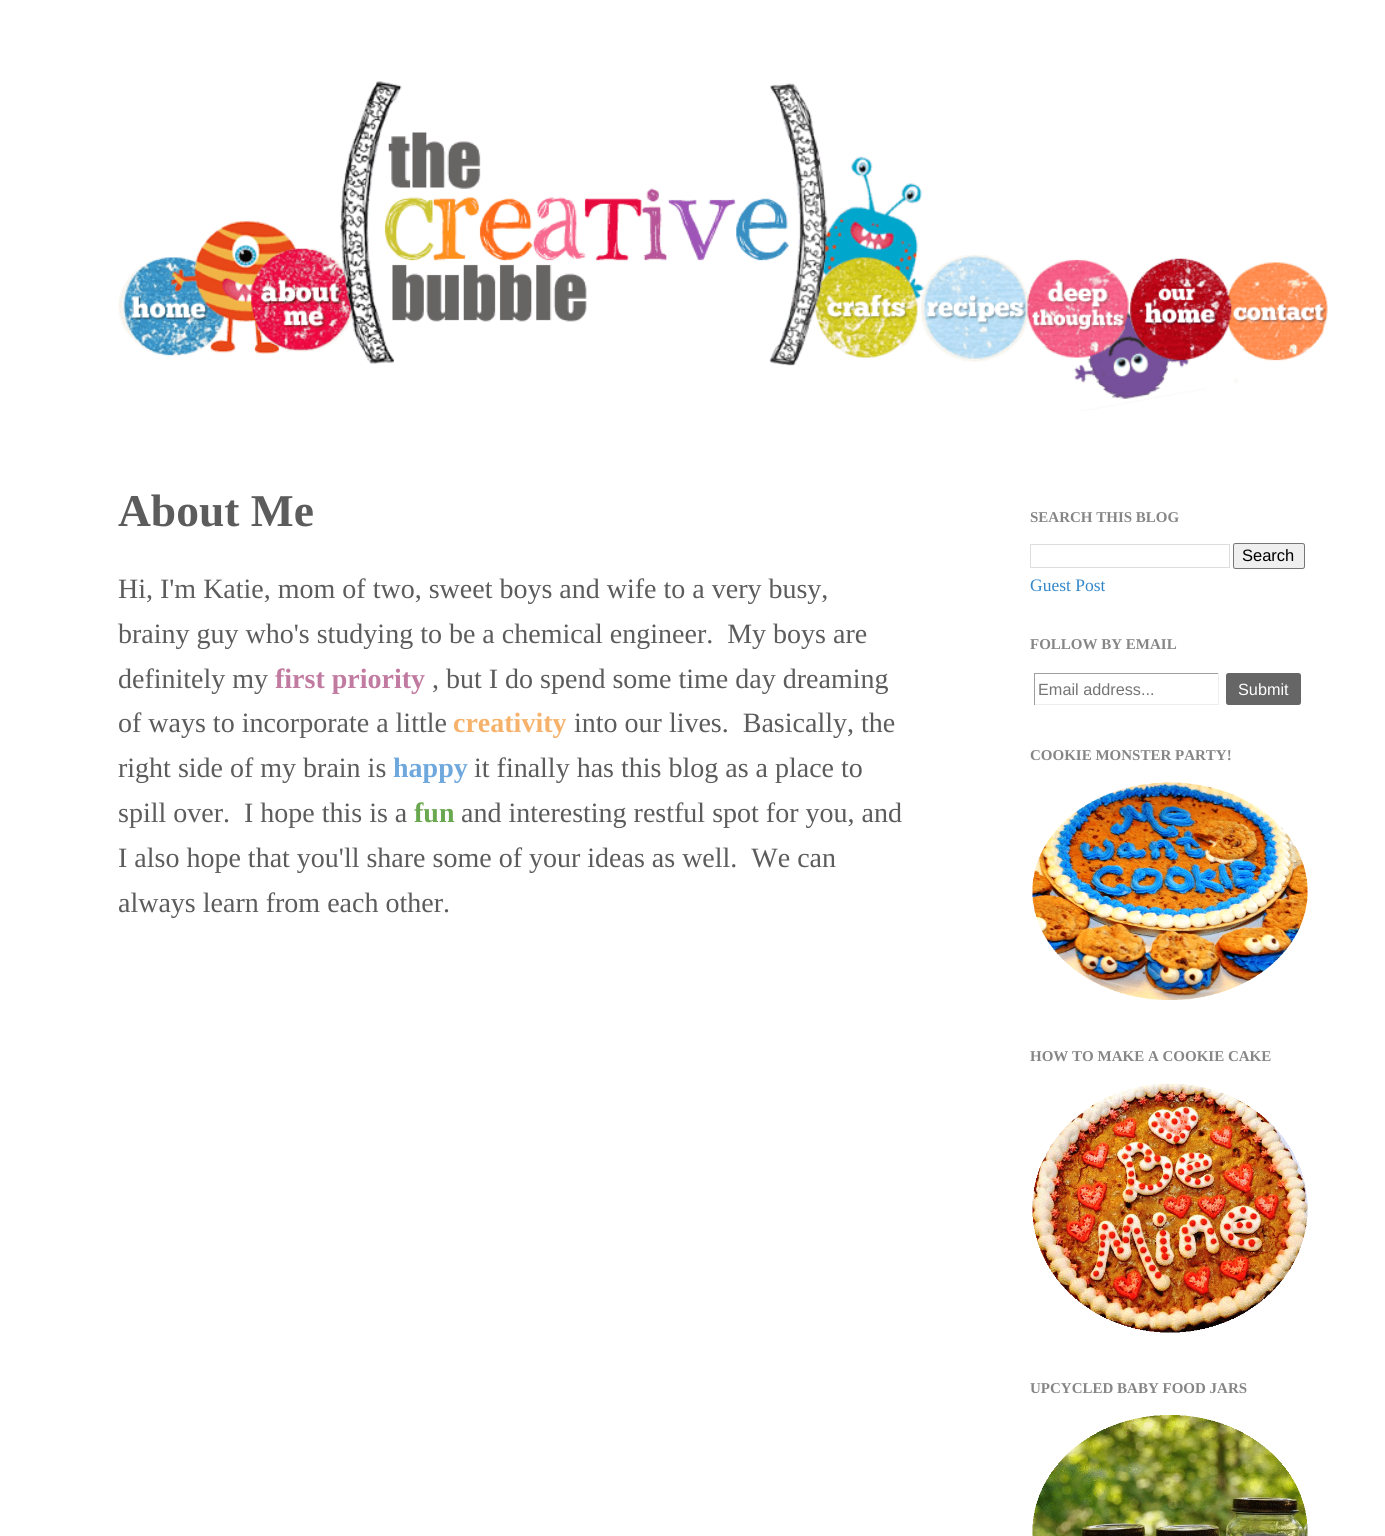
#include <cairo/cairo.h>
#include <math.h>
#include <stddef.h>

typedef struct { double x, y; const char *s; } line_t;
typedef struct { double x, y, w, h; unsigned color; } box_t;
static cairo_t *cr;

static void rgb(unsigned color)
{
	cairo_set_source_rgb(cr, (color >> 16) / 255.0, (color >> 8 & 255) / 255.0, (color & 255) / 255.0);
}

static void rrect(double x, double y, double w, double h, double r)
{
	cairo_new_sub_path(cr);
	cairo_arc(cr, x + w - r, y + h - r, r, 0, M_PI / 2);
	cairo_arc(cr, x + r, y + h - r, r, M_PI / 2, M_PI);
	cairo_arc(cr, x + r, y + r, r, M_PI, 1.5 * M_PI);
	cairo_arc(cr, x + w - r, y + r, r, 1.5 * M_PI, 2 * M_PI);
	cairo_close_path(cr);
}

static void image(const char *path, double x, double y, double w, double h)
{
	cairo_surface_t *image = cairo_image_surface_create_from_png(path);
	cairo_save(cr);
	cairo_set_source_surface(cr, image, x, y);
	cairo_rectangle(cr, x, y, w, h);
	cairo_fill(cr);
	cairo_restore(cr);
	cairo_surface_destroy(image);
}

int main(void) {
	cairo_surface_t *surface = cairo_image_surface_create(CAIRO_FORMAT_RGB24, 1385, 1536);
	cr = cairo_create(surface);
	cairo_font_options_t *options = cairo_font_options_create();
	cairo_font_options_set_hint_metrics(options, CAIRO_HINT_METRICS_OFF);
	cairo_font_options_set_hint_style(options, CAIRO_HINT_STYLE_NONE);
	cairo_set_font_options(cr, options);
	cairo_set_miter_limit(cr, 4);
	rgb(0xffffff);
	cairo_paint(cr);
	image("img/1.png", 118, 81, 1210, 330);
	cairo_rectangle(cr, 1030.5, 544.5, 199, 23);
	rgb(0xdddddd);
	cairo_set_line_width(cr, 1);
	cairo_stroke(cr);
	rgb(0xefefef);
	rrect(1233.5, 543.5, 71, 25, 2);
	cairo_fill_preserve(cr);
	rgb(0x767676);
	cairo_stroke(cr);
	{
		static const box_t items[] = {
			{1034, 673, 185, 1, 0x9f9f9f},
			{1218, 673, 1, 32, 0xeeeeee},
			{1034, 704, 185, 1, 0xeeeeee},
			{1034, 673, 1, 32, 0x9f9f9f},
		};
		for (size_t i = 0; i < sizeof items / sizeof *items; i++) {
			rgb(items[i].color);
			cairo_rectangle(cr, items[i].x, items[i].y, items[i].w, items[i].h);
			cairo_fill(cr);
		}
	}
	rgb(0x666666);
	rrect(1226, 673, 75, 32, 2.5);
	cairo_fill(cr);
	image("img/2.png", 1032, 782, 276, 218);
	image("img/3.png", 1032, 1083, 276, 250);
	image("img/4.png", 1032, 1415, 276, 121);
	cairo_select_font_face(cr, "Liberation Serif", CAIRO_FONT_SLANT_NORMAL, CAIRO_FONT_WEIGHT_BOLD);
	cairo_set_font_size(cr, 45.5);
	rgb(0x5c5c5c);
	cairo_move_to(cr, 118, 526);
	cairo_show_text(cr, "About Me");
	cairo_select_font_face(cr, "Liberation Serif", CAIRO_FONT_SLANT_NORMAL, CAIRO_FONT_WEIGHT_NORMAL);
	cairo_set_font_size(cr, 28);
	{
		static const line_t items[] = {
			{118, 598, "Hi, I'm Katie, mom of two, sweet boys and wife to a very busy,"},
			{118, 643, "brainy guy who's studying to be a chemical engineer.  My boys are"},
			{118, 688, "definitely my"},
		};
		for (size_t i = 0; i < sizeof items / sizeof *items; i++) {
			cairo_move_to(cr, items[i].x, items[i].y);
			cairo_show_text(cr, items[i].s);
		}
	}
	cairo_select_font_face(cr, "Liberation Serif", CAIRO_FONT_SLANT_NORMAL, CAIRO_FONT_WEIGHT_BOLD);
	rgb(0xc27ba0);
	cairo_move_to(cr, 275, 688);
	cairo_show_text(cr, "first priority");
	cairo_select_font_face(cr, "Liberation Serif", CAIRO_FONT_SLANT_NORMAL, CAIRO_FONT_WEIGHT_NORMAL);
	rgb(0x5c5c5c);
	cairo_move_to(cr, 432, 688);
	cairo_show_text(cr, ", but I do spend some time day dreaming");
	cairo_move_to(cr, 118, 732);
	cairo_show_text(cr, "of ways to incorporate a little");
	cairo_select_font_face(cr, "Liberation Serif", CAIRO_FONT_SLANT_NORMAL, CAIRO_FONT_WEIGHT_BOLD);
	rgb(0xf6b26b);
	cairo_move_to(cr, 453, 732);
	cairo_show_text(cr, "creativity");
	cairo_select_font_face(cr, "Liberation Serif", CAIRO_FONT_SLANT_NORMAL, CAIRO_FONT_WEIGHT_NORMAL);
	rgb(0x5c5c5c);
	cairo_move_to(cr, 574, 732);
	cairo_show_text(cr, "into our lives.  Basically, the");
	cairo_move_to(cr, 118, 777);
	cairo_show_text(cr, "right side of my brain is");
	cairo_select_font_face(cr, "Liberation Serif", CAIRO_FONT_SLANT_NORMAL, CAIRO_FONT_WEIGHT_BOLD);
	rgb(0x6fa8dc);
	cairo_move_to(cr, 393, 777);
	cairo_show_text(cr, "happy");
	cairo_select_font_face(cr, "Liberation Serif", CAIRO_FONT_SLANT_NORMAL, CAIRO_FONT_WEIGHT_NORMAL);
	rgb(0x5c5c5c);
	cairo_move_to(cr, 474, 777);
	cairo_show_text(cr, "it finally has this blog as a place to");
	cairo_move_to(cr, 118, 822);
	cairo_show_text(cr, "spill over.  I hope this is a");
	cairo_select_font_face(cr, "Liberation Serif", CAIRO_FONT_SLANT_NORMAL, CAIRO_FONT_WEIGHT_BOLD);
	rgb(0x6aa84f);
	cairo_move_to(cr, 414, 822);
	cairo_show_text(cr, "fun");
	cairo_select_font_face(cr, "Liberation Serif", CAIRO_FONT_SLANT_NORMAL, CAIRO_FONT_WEIGHT_NORMAL);
	rgb(0x5c5c5c);
	{
		static const line_t items[] = {
			{461, 822, "and interesting restful spot for you, and"},
			{118, 867, "I also hope that you'll share some of your ideas as well.  We can"},
			{118, 912, "always learn from each other."},
		};
		for (size_t i = 0; i < sizeof items / sizeof *items; i++) {
			cairo_move_to(cr, items[i].x, items[i].y);
			cairo_show_text(cr, items[i].s);
		}
	}
	cairo_select_font_face(cr, "Liberation Serif", CAIRO_FONT_SLANT_NORMAL, CAIRO_FONT_WEIGHT_BOLD);
	cairo_set_font_size(cr, 15);
	rgb(0x868686);
	cairo_move_to(cr, 1030, 522);
	cairo_show_text(cr, "SEARCH THIS BLOG");
	cairo_select_font_face(cr, "Liberation Sans", CAIRO_FONT_SLANT_NORMAL, CAIRO_FONT_WEIGHT_NORMAL);
	cairo_set_font_size(cr, 16.5);
	rgb(0x000000);
	cairo_move_to(cr, 1242, 561);
	cairo_show_text(cr, "Search");
	cairo_select_font_face(cr, "Liberation Serif", CAIRO_FONT_SLANT_NORMAL, CAIRO_FONT_WEIGHT_NORMAL);
	cairo_set_font_size(cr, 17.5);
	rgb(0x3387c9);
	cairo_move_to(cr, 1030, 591);
	cairo_show_text(cr, "Guest Post");
	cairo_select_font_face(cr, "Liberation Serif", CAIRO_FONT_SLANT_NORMAL, CAIRO_FONT_WEIGHT_BOLD);
	cairo_set_font_size(cr, 15);
	rgb(0x868686);
	cairo_move_to(cr, 1030, 649);
	cairo_show_text(cr, "FOLLOW BY EMAIL");
	cairo_select_font_face(cr, "Liberation Sans", CAIRO_FONT_SLANT_NORMAL, CAIRO_FONT_WEIGHT_NORMAL);
	cairo_set_font_size(cr, 16.25);
	rgb(0x757575);
	cairo_move_to(cr, 1038, 695);
	cairo_show_text(cr, "Email address...");
	rgb(0xffffff);
	cairo_move_to(cr, 1238, 695);
	cairo_show_text(cr, "Submit");
	cairo_select_font_face(cr, "Liberation Serif", CAIRO_FONT_SLANT_NORMAL, CAIRO_FONT_WEIGHT_BOLD);
	cairo_set_font_size(cr, 15);
	rgb(0x868686);
	{
		static const line_t items[] = {
			{1030, 760, "COOKIE MONSTER PARTY!"},
			{1030, 1061, "HOW TO MAKE A COOKIE CAKE"},
			{1030, 1393, "UPCYCLED BABY FOOD JARS"},
		};
		for (size_t i = 0; i < sizeof items / sizeof *items; i++) {
			cairo_move_to(cr, items[i].x, items[i].y);
			cairo_show_text(cr, items[i].s);
		}
	}
	cairo_surface_write_to_png(surface, "page.png");
	cairo_font_options_destroy(options);
	cairo_destroy(cr);
	cairo_surface_destroy(surface);
	return 0;
}
